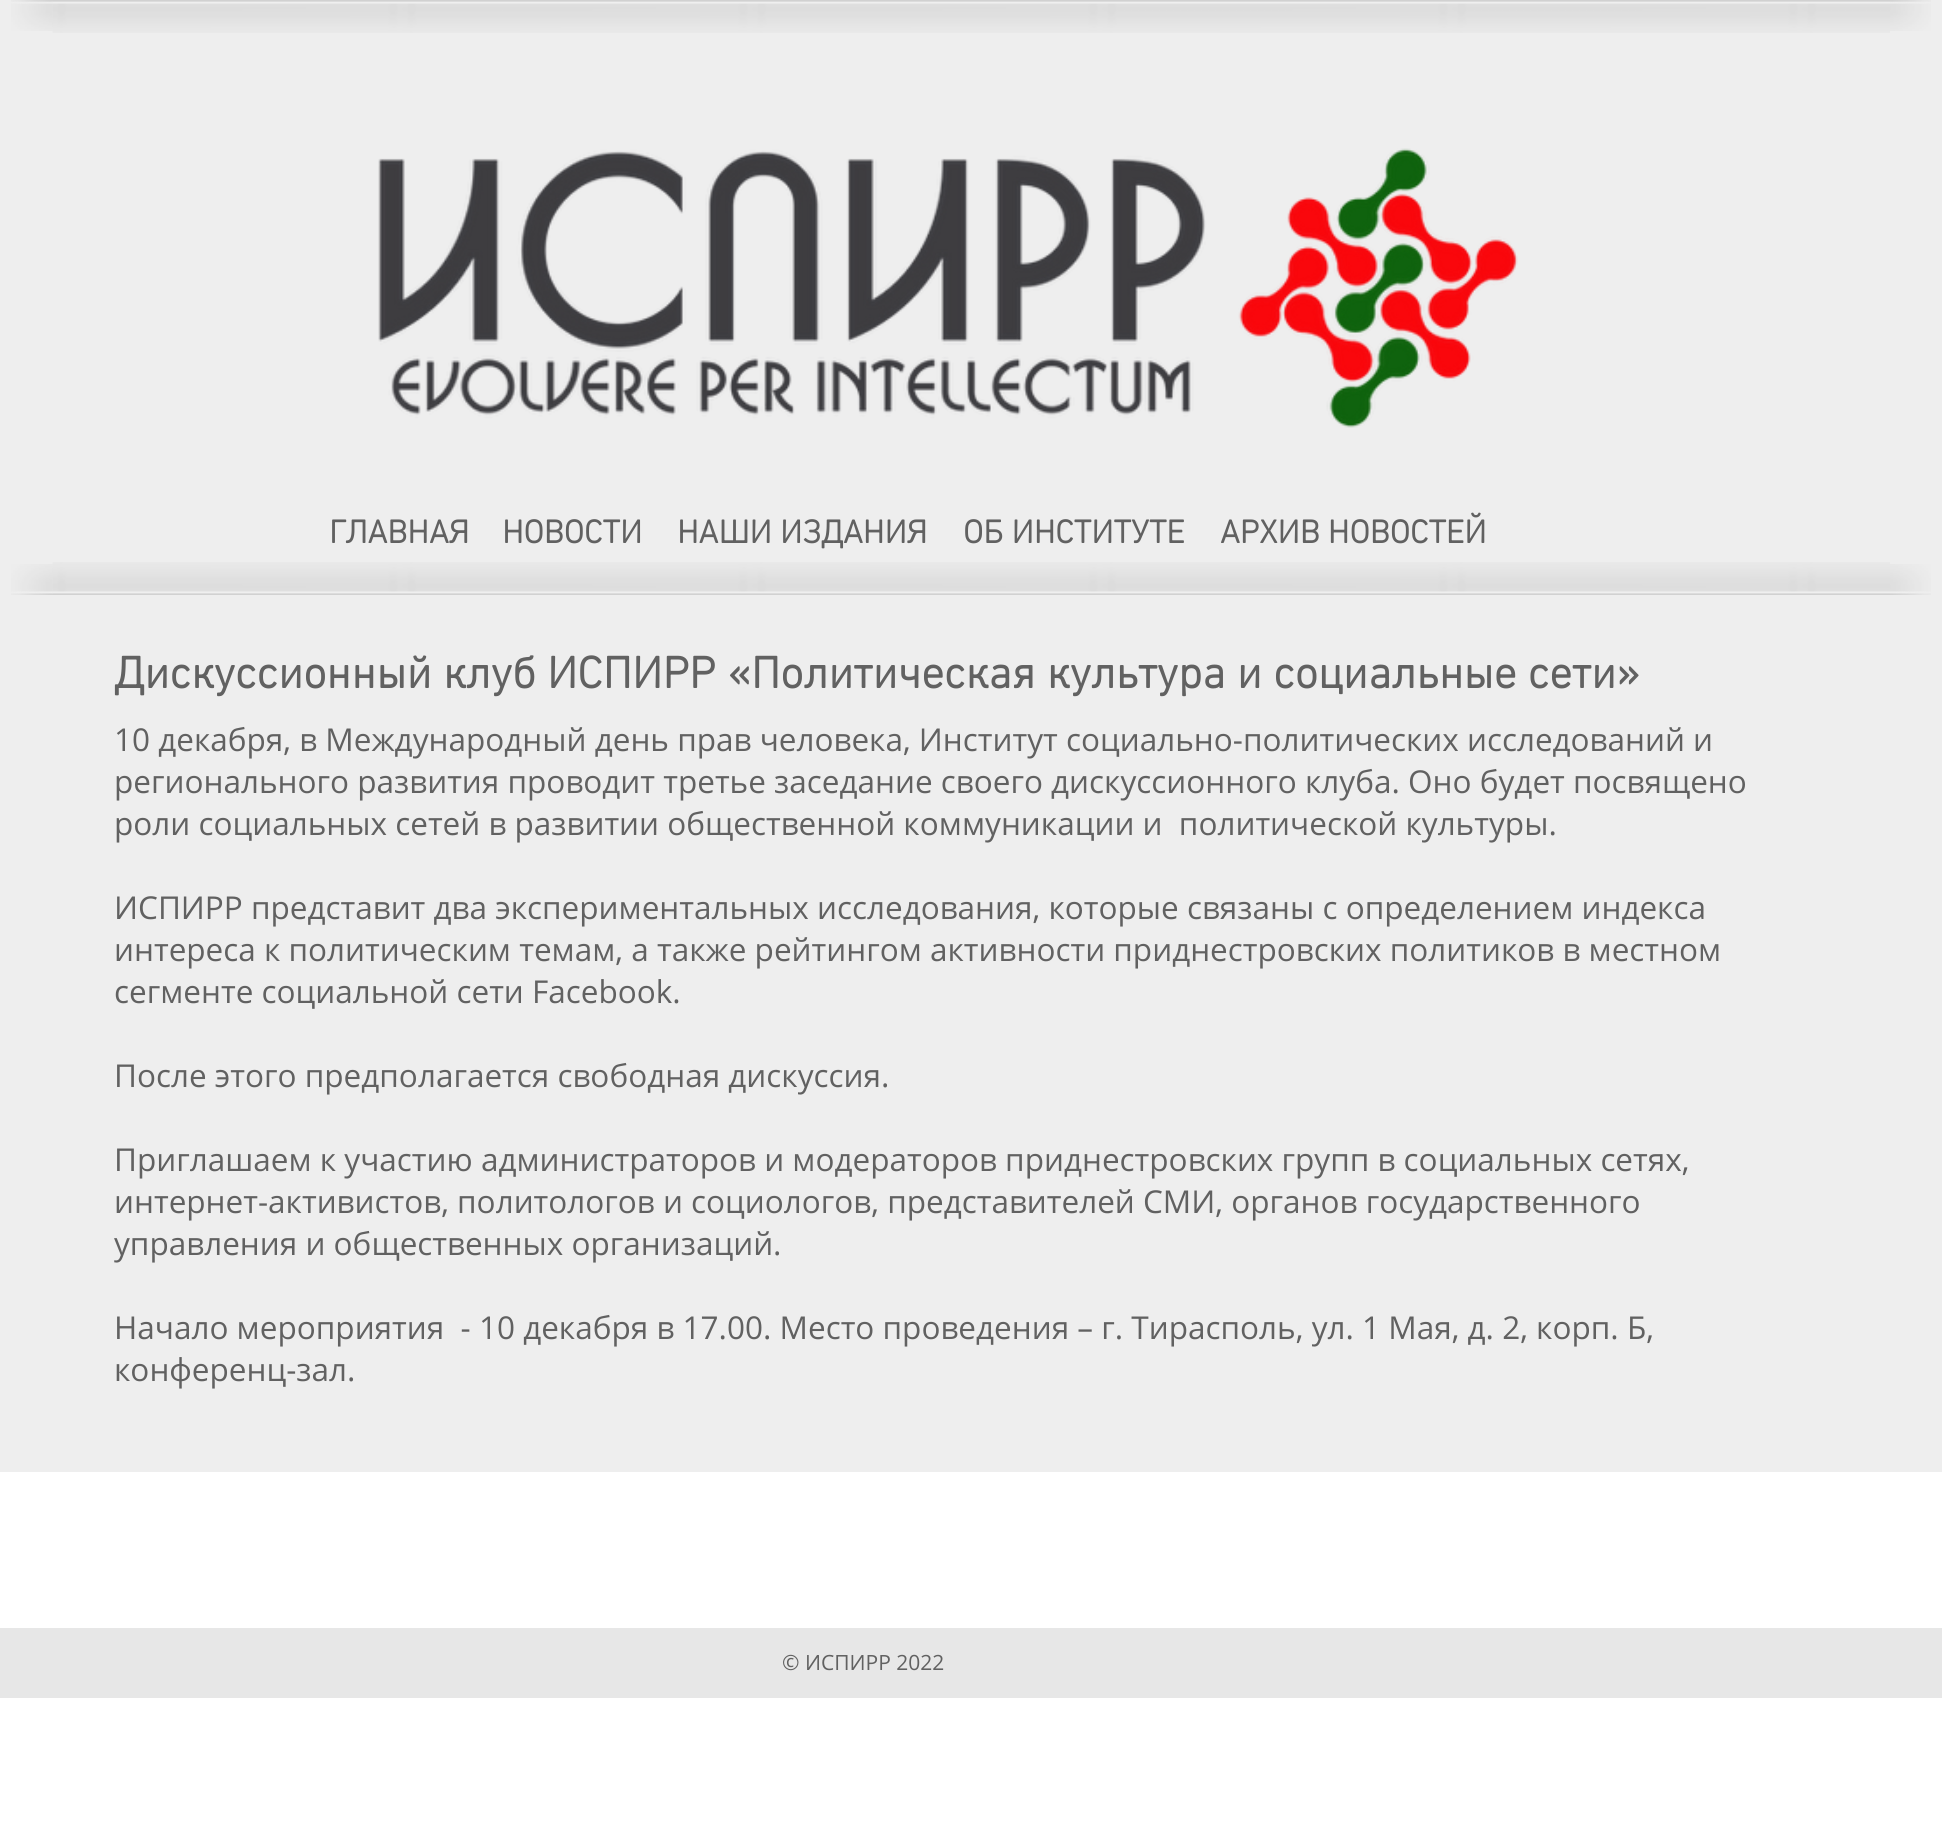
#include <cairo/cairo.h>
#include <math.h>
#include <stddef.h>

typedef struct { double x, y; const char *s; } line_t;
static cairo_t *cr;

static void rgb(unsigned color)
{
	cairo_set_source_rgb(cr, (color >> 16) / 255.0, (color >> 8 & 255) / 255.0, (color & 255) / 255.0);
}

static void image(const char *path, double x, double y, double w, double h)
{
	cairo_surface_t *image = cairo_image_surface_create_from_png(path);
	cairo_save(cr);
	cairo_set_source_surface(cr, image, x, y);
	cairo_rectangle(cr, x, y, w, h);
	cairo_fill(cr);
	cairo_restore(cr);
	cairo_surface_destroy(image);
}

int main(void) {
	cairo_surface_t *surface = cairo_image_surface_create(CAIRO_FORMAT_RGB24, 1942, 1823);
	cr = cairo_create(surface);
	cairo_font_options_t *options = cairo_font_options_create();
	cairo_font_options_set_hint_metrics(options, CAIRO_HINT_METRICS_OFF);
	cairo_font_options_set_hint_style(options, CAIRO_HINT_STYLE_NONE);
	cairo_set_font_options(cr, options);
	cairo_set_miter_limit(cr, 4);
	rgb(0xeeeeee);
	cairo_paint(cr);
	image("img/2.png", 52, 0, 1838, 33);
	image("img/1.png", 11, 0, 42, 31);
	image("img/3.png", 1890, 0, 41, 31);
	image("img/4.png", 378, 148, 1140, 280);
	image("img/6.png", 52, 562, 1838, 33);
	image("img/5.png", 11, 564, 42, 31);
	image("img/7.png", 1890, 564, 41, 31);
	rgb(0xffffff);
	cairo_rectangle(cr, 0, 1472, 1942, 351);
	cairo_fill(cr);
	rgb(0xe7e7e7);
	cairo_rectangle(cr, 0, 1628, 1942, 70);
	cairo_fill(cr);
	cairo_select_font_face(cr, "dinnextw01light", CAIRO_FONT_SLANT_NORMAL, CAIRO_FONT_WEIGHT_BOLD);
	cairo_set_font_size(cr, 33.25);
	rgb(0x616161);
	{
		static const line_t items[] = {
			{329, 543, "ГЛАВНАЯ"},
			{502, 543, "НОВОСТИ"},
			{677, 543, "НАШИ ИЗДАНИЯ"},
			{963, 543, "ОБ ИНСТИТУТЕ"},
			{1220, 543, "АРХИВ НОВОСТЕЙ"},
		};
		for (size_t i = 0; i < sizeof items / sizeof *items; i++) {
			cairo_move_to(cr, items[i].x, items[i].y);
			cairo_show_text(cr, items[i].s);
		}
	}
	cairo_set_font_size(cr, 45.5);
	cairo_move_to(cr, 114, 688);
	cairo_show_text(cr, "Дискуссионный клуб ИСПИРР «Политическая культура и социальные сети»");
	cairo_select_font_face(cr, "Open Sans", CAIRO_FONT_SLANT_NORMAL, CAIRO_FONT_WEIGHT_NORMAL);
	cairo_set_font_size(cr, 31.5);
	{
		static const line_t items[] = {
			{114, 751, "10 декабря, в Международный день прав человека, Институт социально-политических исследований и"},
			{114, 793, "регионального развития проводит третье заседание своего дискуссионного клуба. Оно будет посвящено"},
			{114, 835, "роли социальных сетей в развитии общественной коммуникации и  политической культуры."},
			{114, 919, "ИСПИРР представит два экспериментальных исследования, которые связаны с определением индекса"},
			{114, 961, "интереса к политическим темам, а также рейтингом активности приднестровских политиков в местном"},
			{114, 1003, "сегменте социальной сети Facebook."},
			{114, 1087, "После этого предполагается свободная дискуссия."},
			{114, 1171, "Приглашаем к участию администраторов и модераторов приднестровских групп в социальных сетях,"},
			{114, 1213, "интернет-активистов, политологов и социологов, представителей СМИ, органов государственного"},
			{114, 1255, "управления и общественных организаций."},
			{114, 1339, "Начало мероприятия  - 10 декабря в 17.00. Место проведения – г. Тирасполь, ул. 1 Мая, д. 2, корп. Б,"},
			{114, 1381, "конференц-зал."},
		};
		for (size_t i = 0; i < sizeof items / sizeof *items; i++) {
			cairo_move_to(cr, items[i].x, items[i].y);
			cairo_show_text(cr, items[i].s);
		}
	}
	cairo_set_font_size(cr, 21);
	cairo_move_to(cr, 782, 1670);
	cairo_show_text(cr, "© ИСПИРР 2022");
	cairo_surface_write_to_png(surface, "page.png");
	cairo_font_options_destroy(options);
	cairo_destroy(cr);
	cairo_surface_destroy(surface);
	return 0;
}
